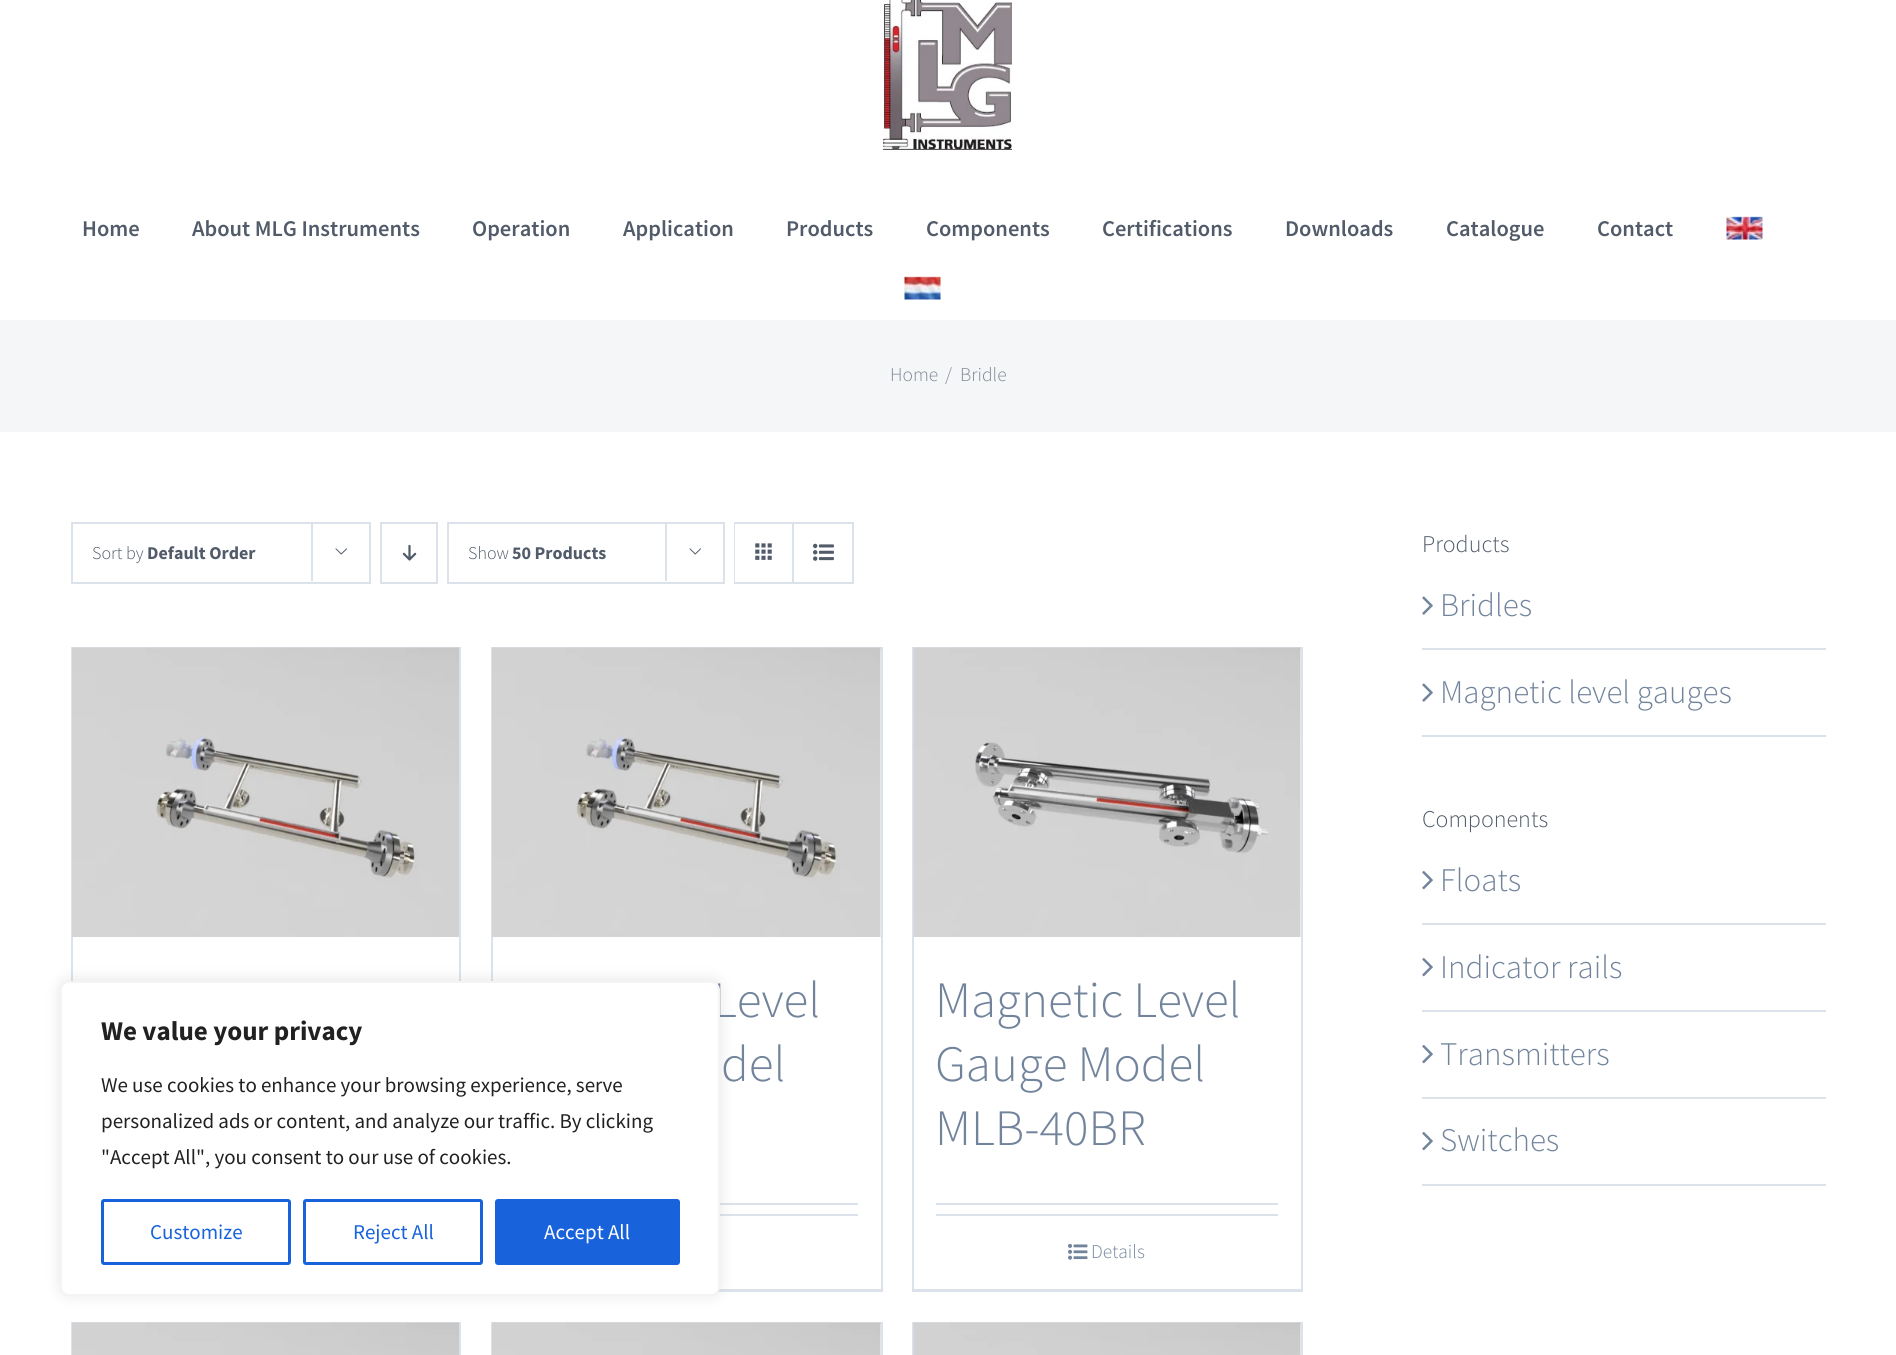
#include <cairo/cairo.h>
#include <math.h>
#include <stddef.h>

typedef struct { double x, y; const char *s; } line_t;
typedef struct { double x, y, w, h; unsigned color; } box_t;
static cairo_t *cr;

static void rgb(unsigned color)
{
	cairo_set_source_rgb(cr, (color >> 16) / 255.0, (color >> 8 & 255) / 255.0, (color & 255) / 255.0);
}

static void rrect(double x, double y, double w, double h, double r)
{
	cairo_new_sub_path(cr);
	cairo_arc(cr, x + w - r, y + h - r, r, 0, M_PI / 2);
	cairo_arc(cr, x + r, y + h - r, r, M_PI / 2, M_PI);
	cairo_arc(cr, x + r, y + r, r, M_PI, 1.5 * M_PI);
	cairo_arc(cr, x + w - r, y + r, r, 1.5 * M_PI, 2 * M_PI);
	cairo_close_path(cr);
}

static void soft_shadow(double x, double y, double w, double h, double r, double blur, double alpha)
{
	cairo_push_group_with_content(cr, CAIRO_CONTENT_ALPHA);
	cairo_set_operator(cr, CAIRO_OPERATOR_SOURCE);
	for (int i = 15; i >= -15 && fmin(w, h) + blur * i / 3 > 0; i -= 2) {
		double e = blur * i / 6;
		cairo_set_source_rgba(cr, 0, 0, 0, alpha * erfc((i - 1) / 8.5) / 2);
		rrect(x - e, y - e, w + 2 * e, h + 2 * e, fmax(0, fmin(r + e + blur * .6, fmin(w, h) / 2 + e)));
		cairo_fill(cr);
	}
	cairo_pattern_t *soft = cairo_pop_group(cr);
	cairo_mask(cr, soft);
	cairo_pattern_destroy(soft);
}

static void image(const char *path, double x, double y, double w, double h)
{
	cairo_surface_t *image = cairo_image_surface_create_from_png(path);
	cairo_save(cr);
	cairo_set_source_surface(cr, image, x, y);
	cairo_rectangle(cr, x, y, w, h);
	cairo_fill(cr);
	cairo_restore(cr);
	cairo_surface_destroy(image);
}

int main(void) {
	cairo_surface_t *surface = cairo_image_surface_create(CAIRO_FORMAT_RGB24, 1896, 1355);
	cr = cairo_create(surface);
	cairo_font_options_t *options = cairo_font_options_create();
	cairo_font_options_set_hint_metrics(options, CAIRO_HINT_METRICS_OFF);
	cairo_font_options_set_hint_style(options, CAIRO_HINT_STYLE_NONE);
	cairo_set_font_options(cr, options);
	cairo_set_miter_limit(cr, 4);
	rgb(0xffffff);
	cairo_paint(cr);
	image("img/1.png", 883, 0, 129, 150);
	image("img/2.png", 1726, 216, 37, 24);
	image("img/3.png", 904, 276, 37, 24);
	rgb(0xf4f6f8);
	cairo_rectangle(cr, 0, 320, 1896, 112);
	cairo_fill(cr);
	cairo_rectangle(cr, 72, 523, 298, 60);
	rgb(0xdbe2ea);
	cairo_stroke(cr);
	cairo_rectangle(cr, 311, 522, 2, 59);
	cairo_fill(cr);
	image("img/4.png", 335, 548, 12, 7);
	cairo_rectangle(cr, 381, 523, 56, 60);
	cairo_stroke(cr);
	image("img/5.png", 402, 544, 15, 17);
	cairo_rectangle(cr, 448, 523, 276, 60);
	cairo_stroke(cr);
	cairo_rectangle(cr, 665, 522, 2, 59);
	cairo_fill(cr);
	image("img/4.png", 689, 548, 12, 7);
	cairo_rectangle(cr, 735, 523, 118, 60);
	cairo_stroke(cr);
	rgb(0xffffff);
	cairo_rectangle(cr, 735, 524, 1, 58);
	cairo_fill(cr);
	rgb(0xdbe2ea);
	cairo_rectangle(cr, 792, 524, 2, 58);
	cairo_fill(cr);
	image("img/6.png", 755, 543, 17, 17);
	image("img/7.png", 813, 543, 21, 18);
	{
		static const box_t items[] = {
			{71, 647, 390, 1, 0xdbe2ea},
			{459, 647, 2, 334, 0xdbe2ea},
			{71, 647, 2, 334, 0xdbe2ea},
		};
		for (size_t i = 0; i < sizeof items / sizeof *items; i++) {
			rgb(items[i].color);
			cairo_rectangle(cr, items[i].x, items[i].y, items[i].w, items[i].h);
			cairo_fill(cr);
		}
	}
	image("img/8.png", 72, 647, 387, 290);
	{
		static const box_t items[] = {
			{491, 647, 391, 2, 0xdbe2ea},
			{881, 647, 2, 645, 0xdbe2ea},
			{718, 1289, 164, 3, 0xdbe2ea},
			{491, 647, 2, 334, 0xdbe2ea},
		};
		for (size_t i = 0; i < sizeof items / sizeof *items; i++) {
			rgb(items[i].color);
			cairo_rectangle(cr, items[i].x, items[i].y, items[i].w, items[i].h);
			cairo_fill(cr);
		}
	}
	image("img/9.png", 492, 647, 389, 290);
	{
		static const box_t items[] = {
			{720, 1203, 138, 2, 0xdbe2ea},
			{720, 1214, 138, 2, 0xdbe2ea},
			{912, 647, 390, 2, 0xdbe2ea},
			{1301, 647, 2, 645, 0xdbe2ea},
			{912, 1289, 390, 3, 0xdbe2ea},
			{912, 647, 2, 645, 0xdbe2ea},
		};
		for (size_t i = 0; i < sizeof items / sizeof *items; i++) {
			rgb(items[i].color);
			cairo_rectangle(cr, items[i].x, items[i].y, items[i].w, items[i].h);
			cairo_fill(cr);
		}
	}
	image("img/10.png", 913, 647, 388, 290);
	cairo_rectangle(cr, 936, 1203, 342, 2);
	cairo_fill(cr);
	cairo_rectangle(cr, 936, 1214, 342, 2);
	cairo_fill(cr);
	image("img/11.png", 1068, 1243, 20, 17);
	{
		static const box_t items[] = {
			{71, 1322, 390, 1, 0xdbe2ea},
			{459, 1322, 2, 33, 0xdbe2ea},
			{71, 1322, 2, 33, 0xdbe2ea},
		};
		for (size_t i = 0; i < sizeof items / sizeof *items; i++) {
			rgb(items[i].color);
			cairo_rectangle(cr, items[i].x, items[i].y, items[i].w, items[i].h);
			cairo_fill(cr);
		}
	}
	image("img/12.png", 72, 1322, 387, 33);
	{
		static const box_t items[] = {
			{491, 1322, 391, 2, 0xdbe2ea},
			{881, 1322, 2, 33, 0xdbe2ea},
			{491, 1322, 2, 33, 0xdbe2ea},
		};
		for (size_t i = 0; i < sizeof items / sizeof *items; i++) {
			rgb(items[i].color);
			cairo_rectangle(cr, items[i].x, items[i].y, items[i].w, items[i].h);
			cairo_fill(cr);
		}
	}
	image("img/13.png", 492, 1322, 389, 33);
	{
		static const box_t items[] = {
			{912, 1322, 390, 2, 0xdbe2ea},
			{1301, 1322, 2, 33, 0xdbe2ea},
			{912, 1322, 2, 33, 0xdbe2ea},
		};
		for (size_t i = 0; i < sizeof items / sizeof *items; i++) {
			rgb(items[i].color);
			cairo_rectangle(cr, items[i].x, items[i].y, items[i].w, items[i].h);
			cairo_fill(cr);
		}
	}
	image("img/14.png", 913, 1322, 388, 33);
	cairo_rectangle(cr, 1422, 648, 404, 2);
	cairo_fill(cr);
	image("img/15.png", 1422, 596, 11, 19);
	cairo_rectangle(cr, 1422, 735, 404, 2);
	cairo_fill(cr);
	image("img/15.png", 1422, 683, 11, 19);
	cairo_rectangle(cr, 1422, 923, 404, 2);
	cairo_fill(cr);
	image("img/16.png", 1422, 871, 11, 19);
	cairo_rectangle(cr, 1422, 1010, 404, 2);
	cairo_fill(cr);
	image("img/16.png", 1422, 958, 11, 19);
	cairo_rectangle(cr, 1422, 1097, 404, 2);
	cairo_fill(cr);
	image("img/16.png", 1422, 1045, 11, 19);
	cairo_rectangle(cr, 1422, 1184, 404, 2);
	cairo_fill(cr);
	image("img/16.png", 1422, 1132, 11, 19);
	rgb(0xacabab);
	soft_shadow(60, 980, 660, 315, 9, 7.5, 0.3);
	cairo_select_font_face(cr, "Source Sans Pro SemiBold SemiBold", CAIRO_FONT_SLANT_NORMAL, CAIRO_FONT_WEIGHT_NORMAL);
	cairo_set_font_size(cr, 22.5);
	rgb(0x515b69);
	{
		static const line_t items[] = {
			{82, 236, "Home"},
			{192, 236, "About MLG Instruments"},
			{472, 236, "Operation"},
			{623, 236, "Application"},
			{786, 236, "Products"},
			{926, 236, "Components"},
			{1102, 236, "Certifications"},
			{1285, 236, "Downloads"},
			{1446, 236, "Catalogue"},
			{1597, 236, "Contact"},
		};
		for (size_t i = 0; i < sizeof items / sizeof *items; i++) {
			cairo_move_to(cr, items[i].x, items[i].y);
			cairo_show_text(cr, items[i].s);
		}
	}
	cairo_select_font_face(cr, "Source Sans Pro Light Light", CAIRO_FONT_SLANT_NORMAL, CAIRO_FONT_WEIGHT_NORMAL);
	cairo_set_font_size(cr, 19.5);
	rgb(0x7f8795);
	{
		static const line_t items[] = {
			{890, 381, "Home"},
			{945, 381, "/"},
			{960, 381, "Bridle"},
		};
		for (size_t i = 0; i < sizeof items / sizeof *items; i++) {
			cairo_move_to(cr, items[i].x, items[i].y);
			cairo_show_text(cr, items[i].s);
		}
	}
	cairo_set_font_size(cr, 18);
	rgb(0x515b69);
	cairo_move_to(cr, 92, 559);
	cairo_show_text(cr, "Sort by");
	cairo_select_font_face(cr, "Source Sans Pro", CAIRO_FONT_SLANT_NORMAL, CAIRO_FONT_WEIGHT_BOLD);
	cairo_move_to(cr, 147, 559);
	cairo_show_text(cr, "Default Order");
	cairo_select_font_face(cr, "Source Sans Pro Light Light", CAIRO_FONT_SLANT_NORMAL, CAIRO_FONT_WEIGHT_NORMAL);
	cairo_move_to(cr, 468, 559);
	cairo_show_text(cr, "Show");
	cairo_select_font_face(cr, "Source Sans Pro", CAIRO_FONT_SLANT_NORMAL, CAIRO_FONT_WEIGHT_BOLD);
	cairo_move_to(cr, 512, 559);
	cairo_show_text(cr, "50 Products");
	cairo_select_font_face(cr, "Source Sans Pro Light Light", CAIRO_FONT_SLANT_NORMAL, CAIRO_FONT_WEIGHT_NORMAL);
	cairo_set_font_size(cr, 51);
	rgb(0x72849c);
	{
		static const line_t items[] = {
			{713, 1017, "Level"},
			{721, 1081, "del"},
			{935, 1017, "Magnetic Level"},
			{935, 1081, "Gauge Model"},
			{935, 1145, "MLB-40BR"},
		};
		for (size_t i = 0; i < sizeof items / sizeof *items; i++) {
			cairo_move_to(cr, items[i].x, items[i].y);
			cairo_show_text(cr, items[i].s);
		}
	}
	cairo_set_font_size(cr, 19.5);
	cairo_move_to(cr, 1091, 1258);
	cairo_show_text(cr, "Details");
	cairo_set_font_size(cr, 24);
	rgb(0x515b69);
	cairo_move_to(cr, 1422, 552);
	cairo_show_text(cr, "Products");
	cairo_set_font_size(cr, 33);
	rgb(0x72849c);
	cairo_move_to(cr, 1440, 616);
	cairo_show_text(cr, "Bridles");
	cairo_move_to(cr, 1440, 703);
	cairo_show_text(cr, "Magnetic level gauges");
	cairo_set_font_size(cr, 24);
	rgb(0x515b69);
	cairo_move_to(cr, 1422, 827);
	cairo_show_text(cr, "Components");
	cairo_set_font_size(cr, 33);
	rgb(0x72849c);
	{
		static const line_t items[] = {
			{1440, 891, "Floats"},
			{1440, 978, "Indicator rails"},
			{1440, 1065, "Transmitters"},
			{1440, 1151, "Switches"},
		};
		for (size_t i = 0; i < sizeof items / sizeof *items; i++) {
			cairo_move_to(cr, items[i].x, items[i].y);
			cairo_show_text(cr, items[i].s);
		}
	}
	rgb(0xffffff);
	rrect(61, 982, 658, 313, 8);
	cairo_fill_preserve(cr);
	rgb(0xf4f4f4);
	cairo_stroke(cr);
	cairo_select_font_face(cr, "Source Sans Pro", CAIRO_FONT_SLANT_NORMAL, CAIRO_FONT_WEIGHT_BOLD);
	cairo_set_font_size(cr, 27);
	rgb(0x212121);
	cairo_move_to(cr, 101, 1040);
	cairo_show_text(cr, "We value your privacy");
	cairo_select_font_face(cr, "Source Sans Pro", CAIRO_FONT_SLANT_NORMAL, CAIRO_FONT_WEIGHT_NORMAL);
	cairo_set_font_size(cr, 21);
	{
		static const line_t items[] = {
			{101, 1092, "We use cookies to enhance your browsing experience, serve"},
			{101, 1128, "personalized ads or content, and analyze our traffic. By clicking"},
			{101, 1164, "\"Accept All\", you consent to our use of cookies."},
		};
		for (size_t i = 0; i < sizeof items / sizeof *items; i++) {
			cairo_move_to(cr, items[i].x, items[i].y);
			cairo_show_text(cr, items[i].s);
		}
	}
	rrect(102.5, 1200.5, 187, 63, 1.5);
	rgb(0x1863dc);
	cairo_set_line_width(cr, 3);
	cairo_stroke(cr);
	cairo_move_to(cr, 150, 1239);
	cairo_show_text(cr, "Customize");
	rrect(304.5, 1200.5, 177, 63, 1.5);
	cairo_stroke(cr);
	cairo_move_to(cr, 353, 1239);
	cairo_show_text(cr, "Reject All");
	rrect(496.5, 1200.5, 182, 63, 1.5);
	cairo_fill_preserve(cr);
	cairo_stroke(cr);
	rgb(0xffffff);
	cairo_move_to(cr, 544, 1239);
	cairo_show_text(cr, "Accept All");
	cairo_surface_write_to_png(surface, "page.png");
	cairo_font_options_destroy(options);
	cairo_destroy(cr);
	cairo_surface_destroy(surface);
	return 0;
}
